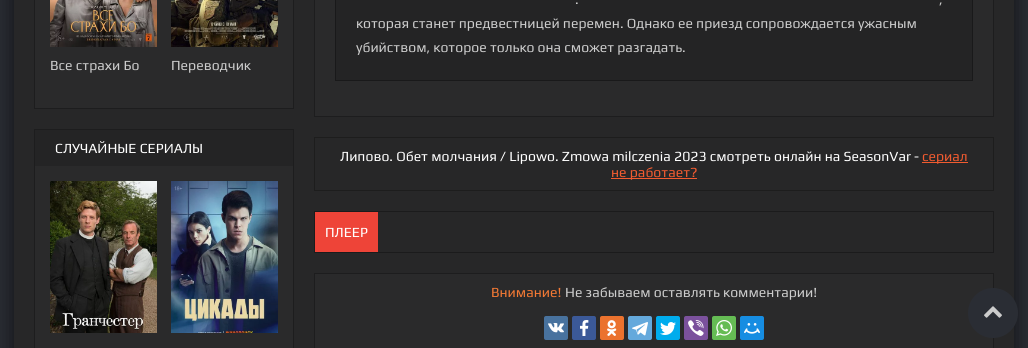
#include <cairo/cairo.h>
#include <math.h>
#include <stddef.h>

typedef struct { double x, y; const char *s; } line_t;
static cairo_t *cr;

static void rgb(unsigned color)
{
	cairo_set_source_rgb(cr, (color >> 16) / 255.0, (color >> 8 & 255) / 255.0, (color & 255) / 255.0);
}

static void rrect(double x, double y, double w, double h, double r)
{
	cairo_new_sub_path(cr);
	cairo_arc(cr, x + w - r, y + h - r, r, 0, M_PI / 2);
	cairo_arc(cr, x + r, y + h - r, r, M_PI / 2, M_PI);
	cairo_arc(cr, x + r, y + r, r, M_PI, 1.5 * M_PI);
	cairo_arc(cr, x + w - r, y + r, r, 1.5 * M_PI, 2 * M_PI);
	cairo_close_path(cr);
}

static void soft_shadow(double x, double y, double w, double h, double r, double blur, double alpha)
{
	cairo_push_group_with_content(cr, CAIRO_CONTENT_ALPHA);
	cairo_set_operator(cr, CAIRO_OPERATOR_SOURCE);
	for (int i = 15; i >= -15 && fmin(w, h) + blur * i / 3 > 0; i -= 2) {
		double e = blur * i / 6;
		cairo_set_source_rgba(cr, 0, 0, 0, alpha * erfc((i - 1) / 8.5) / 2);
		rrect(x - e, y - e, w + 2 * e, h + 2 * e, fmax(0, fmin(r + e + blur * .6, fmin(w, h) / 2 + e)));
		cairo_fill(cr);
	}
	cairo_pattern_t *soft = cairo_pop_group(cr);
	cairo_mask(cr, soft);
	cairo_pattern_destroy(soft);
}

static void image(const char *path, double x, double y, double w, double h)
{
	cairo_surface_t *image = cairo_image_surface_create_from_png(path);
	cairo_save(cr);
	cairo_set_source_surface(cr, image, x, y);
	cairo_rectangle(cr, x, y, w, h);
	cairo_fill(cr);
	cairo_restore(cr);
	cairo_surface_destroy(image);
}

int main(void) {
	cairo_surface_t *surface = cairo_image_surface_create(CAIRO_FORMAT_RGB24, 1028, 348);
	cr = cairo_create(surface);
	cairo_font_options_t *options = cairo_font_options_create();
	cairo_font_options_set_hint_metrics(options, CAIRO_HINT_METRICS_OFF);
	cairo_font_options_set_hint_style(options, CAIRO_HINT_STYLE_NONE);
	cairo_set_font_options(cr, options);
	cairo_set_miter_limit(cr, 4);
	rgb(0x292c33);
	cairo_paint(cr);
	rgb(0x000000);
	soft_shadow(14, -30, 1000, 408, 0, 10, 0.6);
	rgb(0x272728);
	cairo_rectangle(cr, 14, 0, 1000, 348);
	cairo_fill(cr);
	rgb(0x2a2a2b);
	cairo_rectangle(cr, 34.5, -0.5, 259, 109);
	cairo_fill_preserve(cr);
	rgb(0x1d1d1e);
	cairo_set_line_width(cr, 1);
	cairo_stroke(cr);
	image("img/1.png", 50, 0, 107, 47);
	image("img/2.png", 171, 0, 107, 47);
	rgb(0x2a2a2b);
	cairo_rectangle(cr, 35, 166, 258, 182);
	cairo_fill(cr);
	cairo_rectangle(cr, 34.5, 129.5, 259, 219);
	rgb(0x1d1d1e);
	cairo_stroke(cr);
	rgb(0x242425);
	cairo_rectangle(cr, 35, 130, 258, 36);
	cairo_fill(cr);
	image("img/3.png", 50, 181, 107, 152);
	image("img/4.png", 171, 181, 107, 152);
	rgb(0x2a2a2b);
	cairo_rectangle(cr, 314.5, -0.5, 679, 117);
	cairo_fill_preserve(cr);
	rgb(0x1d1d1e);
	cairo_stroke(cr);
	rgb(0x242425);
	cairo_rectangle(cr, 335.5, -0.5, 637, 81);
	cairo_fill_preserve(cr);
	rgb(0x19191a);
	cairo_stroke(cr);
	cairo_rectangle(cr, 314.5, 137.5, 679, 53);
	rgb(0x1d1d1d);
	cairo_stroke(cr);
	rgb(0xf15b30);
	cairo_rectangle(cr, 922, 162, 46, 1);
	cairo_fill(cr);
	cairo_rectangle(cr, 611, 178, 86, 1);
	cairo_fill(cr);
	cairo_rectangle(cr, 314.5, 211.5, 679, 41);
	rgb(0x1b1b1c);
	cairo_stroke(cr);
	rgb(0xee4438);
	cairo_rectangle(cr, 315, 212, 63, 40);
	cairo_fill(cr);
	rgb(0x2a2a2b);
	cairo_rectangle(cr, 314.5, 273.5, 679, 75);
	cairo_fill_preserve(cr);
	rgb(0x1d1d1e);
	cairo_stroke(cr);
	rgb(0x48729e);
	rrect(544, 316, 24, 24, 2);
	cairo_fill(cr);
	image("img/5.png", 548, 323, 16, 10);
	rgb(0x3b5998);
	rrect(572, 316, 24, 24, 2);
	cairo_fill(cr);
	image("img/6.png", 580, 320, 9, 16);
	rgb(0xeb722e);
	rrect(600, 316, 24, 24, 2);
	cairo_fill(cr);
	image("img/7.png", 607, 320, 10, 16);
	rgb(0x64a9dc);
	rrect(628, 316, 24, 24, 2);
	cairo_fill(cr);
	image("img/8.png", 632, 322, 16, 14);
	rgb(0x00aced);
	rrect(656, 316, 24, 24, 2);
	cairo_fill(cr);
	image("img/9.png", 660, 322, 16, 13);
	rgb(0x7b519d);
	rrect(684, 316, 24, 24, 2);
	cairo_fill(cr);
	image("img/10.png", 688, 320, 16, 16);
	rgb(0x65bc54);
	rrect(712, 316, 24, 24, 2);
	cairo_fill(cr);
	image("img/11.png", 716, 320, 16, 16);
	rgb(0x168de2);
	rrect(740, 316, 24, 24, 2);
	cairo_fill(cr);
	image("img/12.png", 744, 323, 16, 11);
	rgb(0x2a2d34);
	cairo_arc(cr, 993, 313, 25, 0, 2 * M_PI);
	cairo_fill(cr);
	image("img/13.png", 984, 306, 18, 12);
	cairo_select_font_face(cr, "Play", CAIRO_FONT_SLANT_NORMAL, CAIRO_FONT_WEIGHT_NORMAL);
	cairo_set_font_size(cr, 14);
	rgb(0xcccccc);
	cairo_move_to(cr, 50, 70);
	cairo_show_text(cr, "Все страхи Бо");
	cairo_move_to(cr, 171, 70);
	cairo_show_text(cr, "Переводчик");
	rgb(0xffffff);
	cairo_move_to(cr, 55, 153);
	cairo_show_text(cr, "СЛУЧАЙНЫЕ СЕРИАЛЫ");
	rgb(0xcccccc);
	{
		static const line_t items[] = {
			{575, 4, "."},
			{939, 4, ","},
			{356, 28, "которая станет предвестницей перемен. Однако ее приезд сопровождается ужасным"},
			{356, 52, "убийством, которое только она сможет разгадать."},
		};
		for (size_t i = 0; i < sizeof items / sizeof *items; i++) {
			cairo_move_to(cr, items[i].x, items[i].y);
			cairo_show_text(cr, items[i].s);
		}
	}
	rgb(0xffffff);
	cairo_move_to(cr, 340, 161);
	cairo_show_text(cr, "Липово. Обет молчания / Lipowo. Zmowa milczenia 2023 смотреть онлайн на SeasonVar -");
	rgb(0xf15b30);
	cairo_move_to(cr, 922, 161);
	cairo_show_text(cr, "сериал");
	cairo_move_to(cr, 611, 177);
	cairo_show_text(cr, "не работает?");
	rgb(0xffffff);
	cairo_move_to(cr, 325, 237);
	cairo_show_text(cr, "ПЛЕЕР");
	rgb(0xf37934);
	cairo_move_to(cr, 491, 297);
	cairo_show_text(cr, "Внимание!");
	rgb(0xcccccc);
	cairo_move_to(cr, 565, 297);
	cairo_show_text(cr, "Не забываем оставлять комментарии!");
	cairo_surface_write_to_png(surface, "page.png");
	cairo_font_options_destroy(options);
	cairo_destroy(cr);
	cairo_surface_destroy(surface);
	return 0;
}
